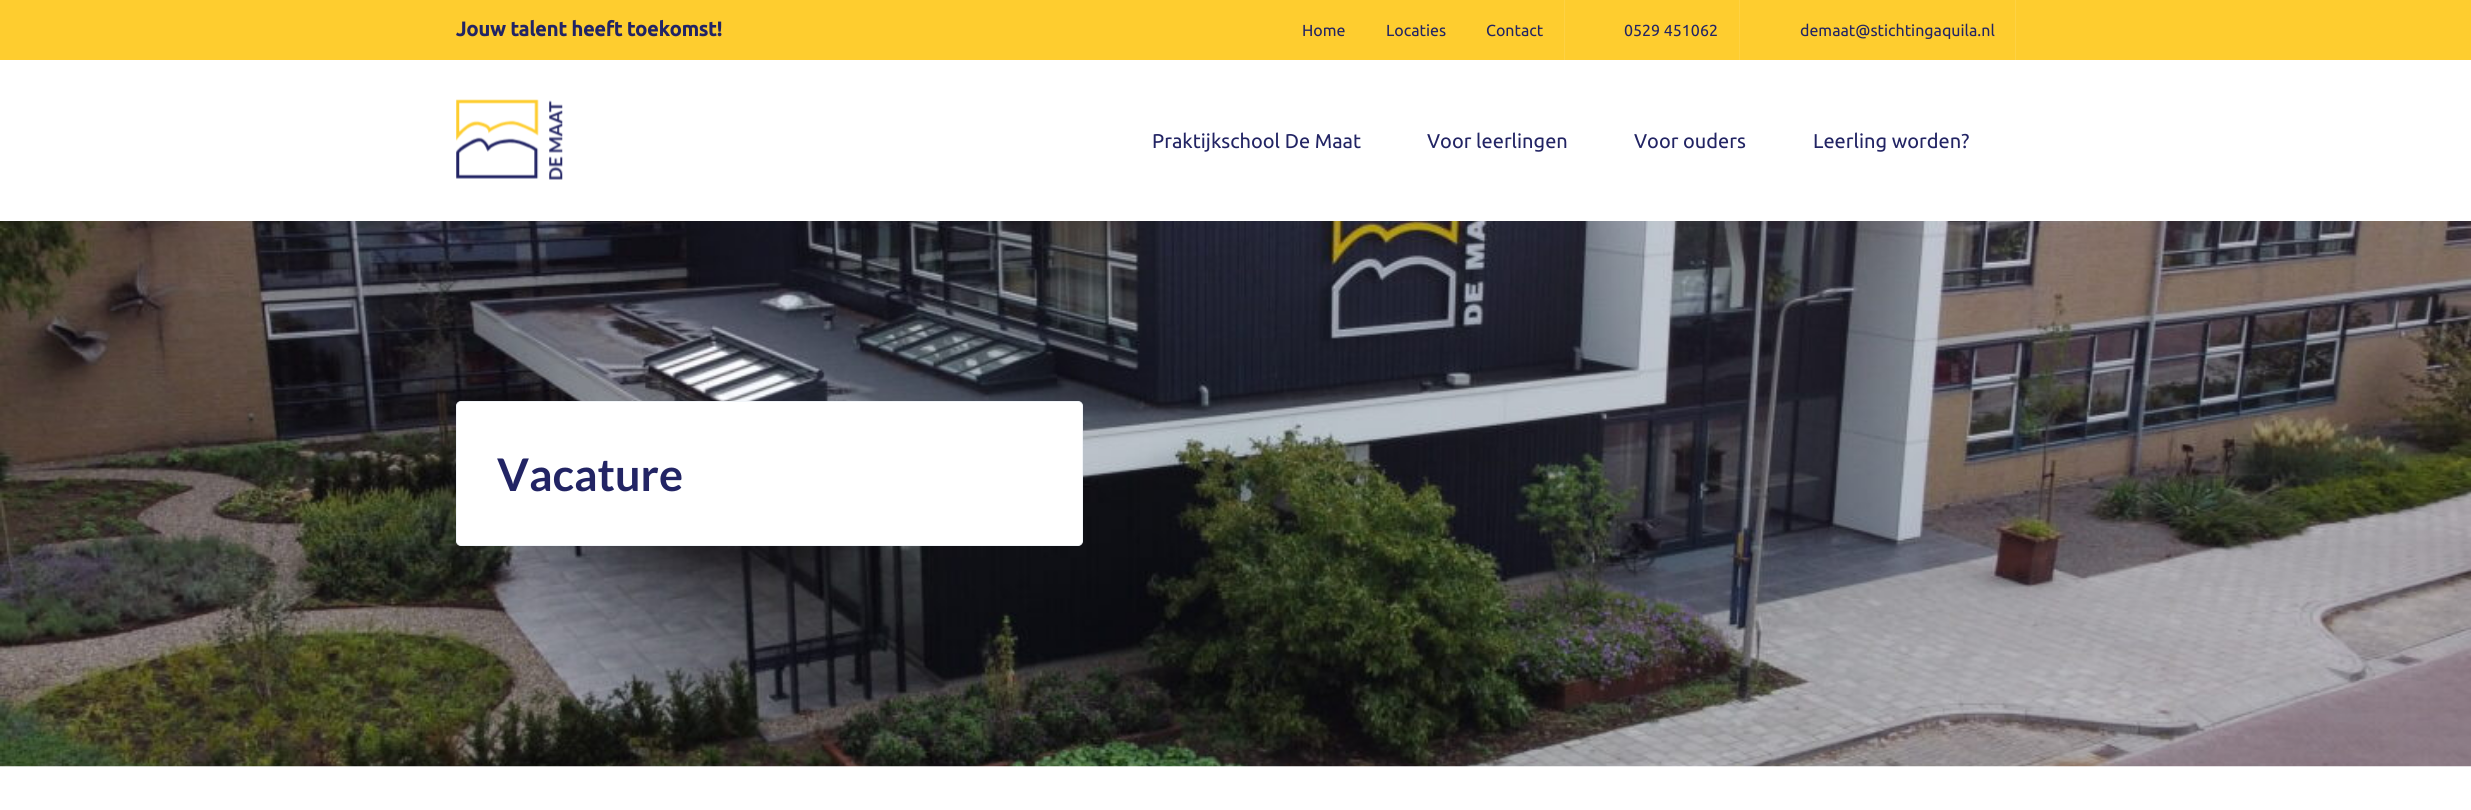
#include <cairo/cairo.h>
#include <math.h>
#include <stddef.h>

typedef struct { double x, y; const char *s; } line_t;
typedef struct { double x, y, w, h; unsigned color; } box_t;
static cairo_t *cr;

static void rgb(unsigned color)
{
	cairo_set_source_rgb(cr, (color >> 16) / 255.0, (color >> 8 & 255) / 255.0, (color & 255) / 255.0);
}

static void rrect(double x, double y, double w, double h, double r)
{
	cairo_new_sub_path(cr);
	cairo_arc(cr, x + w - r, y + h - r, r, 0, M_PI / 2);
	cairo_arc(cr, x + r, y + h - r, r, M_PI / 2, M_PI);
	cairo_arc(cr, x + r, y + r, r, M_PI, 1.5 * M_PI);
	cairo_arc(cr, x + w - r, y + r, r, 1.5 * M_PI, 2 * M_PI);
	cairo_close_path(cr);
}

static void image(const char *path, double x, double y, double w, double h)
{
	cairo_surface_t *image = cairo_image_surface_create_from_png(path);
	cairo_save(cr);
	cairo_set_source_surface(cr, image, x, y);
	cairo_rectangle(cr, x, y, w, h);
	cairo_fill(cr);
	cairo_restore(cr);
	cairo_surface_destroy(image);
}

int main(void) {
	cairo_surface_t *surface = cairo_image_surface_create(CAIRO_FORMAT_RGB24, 2471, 810);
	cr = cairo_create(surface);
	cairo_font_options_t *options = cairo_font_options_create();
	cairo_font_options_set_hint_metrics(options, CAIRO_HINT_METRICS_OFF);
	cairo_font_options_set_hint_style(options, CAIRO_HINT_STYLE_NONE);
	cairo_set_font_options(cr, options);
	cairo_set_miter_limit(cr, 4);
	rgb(0xffffff);
	cairo_paint(cr);
	{
		static const box_t items[] = {
			{0, 0, 2471, 60, 0xfecd2f},
			{1564, 0, 1, 60, 0xfed244},
			{2015, 0, 1, 60, 0xfed244},
			{1739, 0, 1, 60, 0xfed244},
		};
		for (size_t i = 0; i < sizeof items / sizeof *items; i++) {
			rgb(items[i].color);
			cairo_rectangle(cr, items[i].x, items[i].y, items[i].w, items[i].h);
			cairo_fill(cr);
		}
	}
	image("img/1.png", 456, 99, 107, 81);
	image("img/2.png", 0, 221, 2471, 546);
	rgb(0xffffff);
	rrect(456.5, 401.5, 626, 144, 4.5);
	cairo_fill_preserve(cr);
	rgb(0xf1f5f9);
	cairo_set_line_width(cr, 1);
	cairo_stroke(cr);
	cairo_select_font_face(cr, "Ubuntu", CAIRO_FONT_SLANT_NORMAL, CAIRO_FONT_WEIGHT_BOLD);
	cairo_set_font_size(cr, 20);
	rgb(0x222464);
	cairo_move_to(cr, 456, 36);
	cairo_show_text(cr, "Jouw talent heeft toekomst!");
	cairo_select_font_face(cr, "Ubuntu", CAIRO_FONT_SLANT_NORMAL, CAIRO_FONT_WEIGHT_NORMAL);
	cairo_set_font_size(cr, 16);
	{
		static const line_t items[] = {
			{1302, 36, "Home"},
			{1386, 36, "Locaties"},
			{1486, 36, "Contact"},
			{1624, 36, "0529 451062"},
			{1800, 36, "demaat@stichtingaquila.nl"},
		};
		for (size_t i = 0; i < sizeof items / sizeof *items; i++) {
			cairo_move_to(cr, items[i].x, items[i].y);
			cairo_show_text(cr, items[i].s);
		}
	}
	cairo_set_font_size(cr, 20);
	{
		static const line_t items[] = {
			{1152, 148, "Praktijkschool De Maat"},
			{1427, 148, "Voor leerlingen"},
			{1634, 148, "Voor ouders"},
			{1813, 148, "Leerling worden?"},
		};
		for (size_t i = 0; i < sizeof items / sizeof *items; i++) {
			cairo_move_to(cr, items[i].x, items[i].y);
			cairo_show_text(cr, items[i].s);
		}
	}
	cairo_select_font_face(cr, "Lato", CAIRO_FONT_SLANT_NORMAL, CAIRO_FONT_WEIGHT_BOLD);
	cairo_set_font_size(cr, 45);
	cairo_move_to(cr, 497, 491);
	cairo_show_text(cr, "Vacature");
	cairo_surface_write_to_png(surface, "page.png");
	cairo_font_options_destroy(options);
	cairo_destroy(cr);
	cairo_surface_destroy(surface);
	return 0;
}
